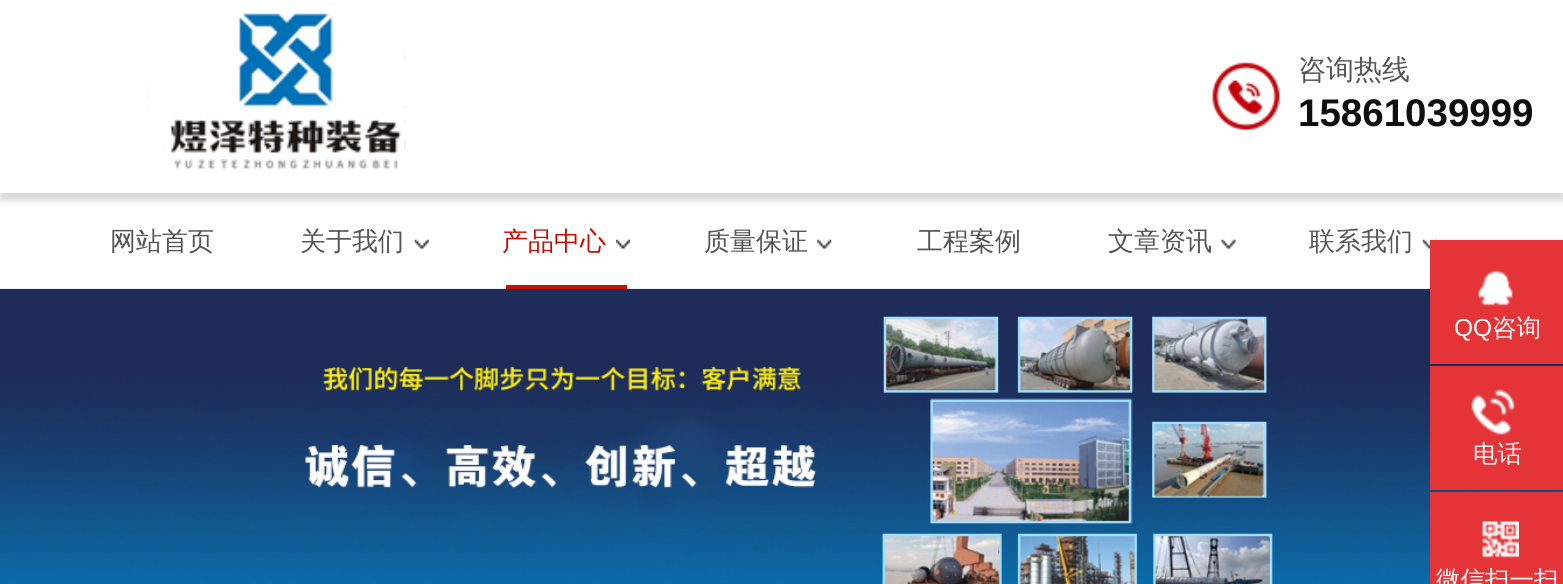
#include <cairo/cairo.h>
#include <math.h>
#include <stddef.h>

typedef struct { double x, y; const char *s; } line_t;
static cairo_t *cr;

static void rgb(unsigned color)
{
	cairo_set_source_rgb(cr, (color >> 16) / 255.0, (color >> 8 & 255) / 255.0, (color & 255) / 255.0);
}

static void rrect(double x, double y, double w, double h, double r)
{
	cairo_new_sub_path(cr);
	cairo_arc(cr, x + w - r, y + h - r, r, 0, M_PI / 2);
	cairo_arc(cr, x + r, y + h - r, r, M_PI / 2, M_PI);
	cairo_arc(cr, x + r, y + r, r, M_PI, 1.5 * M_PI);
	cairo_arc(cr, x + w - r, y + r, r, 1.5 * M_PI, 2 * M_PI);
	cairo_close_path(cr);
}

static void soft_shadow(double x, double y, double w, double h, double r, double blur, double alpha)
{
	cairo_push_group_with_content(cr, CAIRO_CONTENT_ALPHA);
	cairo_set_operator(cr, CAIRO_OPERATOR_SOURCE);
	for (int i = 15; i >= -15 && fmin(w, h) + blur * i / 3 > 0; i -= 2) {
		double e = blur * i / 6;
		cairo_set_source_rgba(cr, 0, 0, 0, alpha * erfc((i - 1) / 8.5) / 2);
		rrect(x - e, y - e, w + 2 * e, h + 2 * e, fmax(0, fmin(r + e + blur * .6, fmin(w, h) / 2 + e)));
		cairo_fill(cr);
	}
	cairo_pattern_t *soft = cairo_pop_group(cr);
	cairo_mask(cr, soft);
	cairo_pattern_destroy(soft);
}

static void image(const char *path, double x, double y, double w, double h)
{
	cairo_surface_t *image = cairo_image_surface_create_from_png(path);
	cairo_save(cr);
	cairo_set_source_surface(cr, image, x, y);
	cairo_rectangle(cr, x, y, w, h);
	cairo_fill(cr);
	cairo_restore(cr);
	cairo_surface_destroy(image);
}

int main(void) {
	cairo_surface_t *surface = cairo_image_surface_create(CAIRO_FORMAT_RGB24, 1563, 584);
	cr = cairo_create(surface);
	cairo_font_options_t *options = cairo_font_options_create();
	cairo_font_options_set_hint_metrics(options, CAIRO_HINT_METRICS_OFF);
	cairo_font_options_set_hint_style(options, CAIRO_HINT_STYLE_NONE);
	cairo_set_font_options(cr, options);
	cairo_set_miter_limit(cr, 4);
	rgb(0xffffff);
	cairo_paint(cr);
	rgb(0x000000);
	soft_shadow(0, 9, 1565, 192, 0, 3.5, 0.15);
	rgb(0xffffff);
	cairo_rectangle(cr, 0, 4, 1563, 189);
	cairo_fill(cr);
	image("img/1.png", 147, 13, 259, 157);
	image("img/2.png", 1212, 62, 68, 68);
	image("img/3.png", 414, 239, 15, 10);
	image("img/4.png", 616, 239, 14, 10);
	image("img/8.png", 0, 288, 1563, 296);
	rgb(0xc51003);
	cairo_rectangle(cr, 506, 285, 121, 4);
	cairo_fill(cr);
	image("img/5.png", 817, 239, 15, 10);
	image("img/6.png", 1221, 239, 15, 10);
	image("img/7.png", 1422, 239, 15, 10);
	rgb(0xe43437);
	cairo_rectangle(cr, 1430, 240, 133, 124);
	cairo_fill(cr);
	image("img/9.png", 1478, 270, 35, 36);
	cairo_rectangle(cr, 1430, 366, 133, 124);
	cairo_fill(cr);
	image("img/10.png", 1471, 389, 44, 46);
	cairo_rectangle(cr, 1430, 492, 133, 92);
	cairo_fill(cr);
	image("img/11.png", 1482, 521, 37, 37);
	cairo_select_font_face(cr, "WenQuanYi Zen Hei Medium", CAIRO_FONT_SLANT_NORMAL, CAIRO_FONT_WEIGHT_NORMAL);
	cairo_set_font_size(cr, 28);
	rgb(0x555555);
	cairo_move_to(cr, 1298, 79);
	cairo_show_text(cr, "咨询热线");
	cairo_select_font_face(cr, "Liberation Sans", CAIRO_FONT_SLANT_NORMAL, CAIRO_FONT_WEIGHT_BOLD);
	cairo_set_font_size(cr, 38.5);
	rgb(0x0f0f0f);
	cairo_move_to(cr, 1298, 126);
	cairo_show_text(cr, "15861039999");
	cairo_select_font_face(cr, "WenQuanYi Zen Hei Medium", CAIRO_FONT_SLANT_NORMAL, CAIRO_FONT_WEIGHT_NORMAL);
	cairo_set_font_size(cr, 26);
	rgb(0x555555);
	cairo_move_to(cr, 110, 250);
	cairo_show_text(cr, "网站首页");
	cairo_move_to(cr, 300, 250);
	cairo_show_text(cr, "关于我们");
	rgb(0xc51003);
	cairo_move_to(cr, 502, 250);
	cairo_show_text(cr, "产品中心");
	rgb(0x555555);
	{
		static const line_t items[] = {
			{704, 250, "质量保证"},
			{917, 250, "工程案例"},
			{1108, 250, "文章资讯"},
			{1309, 250, "联系我们"},
		};
		for (size_t i = 0; i < sizeof items / sizeof *items; i++) {
			cairo_move_to(cr, items[i].x, items[i].y);
			cairo_show_text(cr, items[i].s);
		}
	}
	cairo_select_font_face(cr, "Liberation Sans", CAIRO_FONT_SLANT_NORMAL, CAIRO_FONT_WEIGHT_NORMAL);
	cairo_set_font_size(cr, 24.5);
	rgb(0xffffff);
	cairo_move_to(cr, 1454, 336);
	cairo_show_text(cr, "QQ");
	cairo_select_font_face(cr, "WenQuanYi Zen Hei Medium", CAIRO_FONT_SLANT_NORMAL, CAIRO_FONT_WEIGHT_NORMAL);
	{
		static const line_t items[] = {
			{1492, 336, "咨询"},
			{1473, 462, "电话"},
			{1436, 588, "微信扫一扫"},
		};
		for (size_t i = 0; i < sizeof items / sizeof *items; i++) {
			cairo_move_to(cr, items[i].x, items[i].y);
			cairo_show_text(cr, items[i].s);
		}
	}
	cairo_surface_write_to_png(surface, "page.png");
	cairo_font_options_destroy(options);
	cairo_destroy(cr);
	cairo_surface_destroy(surface);
	return 0;
}
